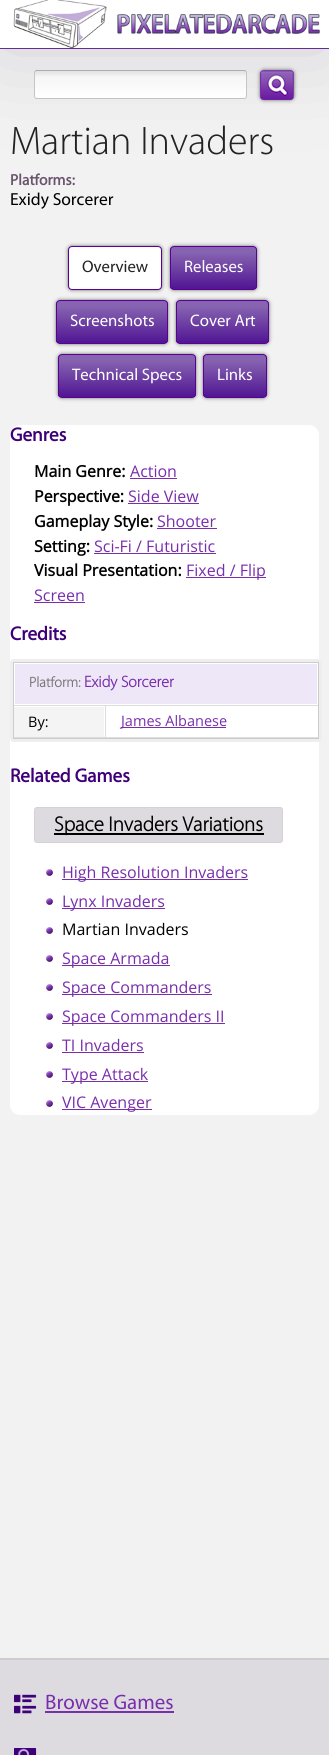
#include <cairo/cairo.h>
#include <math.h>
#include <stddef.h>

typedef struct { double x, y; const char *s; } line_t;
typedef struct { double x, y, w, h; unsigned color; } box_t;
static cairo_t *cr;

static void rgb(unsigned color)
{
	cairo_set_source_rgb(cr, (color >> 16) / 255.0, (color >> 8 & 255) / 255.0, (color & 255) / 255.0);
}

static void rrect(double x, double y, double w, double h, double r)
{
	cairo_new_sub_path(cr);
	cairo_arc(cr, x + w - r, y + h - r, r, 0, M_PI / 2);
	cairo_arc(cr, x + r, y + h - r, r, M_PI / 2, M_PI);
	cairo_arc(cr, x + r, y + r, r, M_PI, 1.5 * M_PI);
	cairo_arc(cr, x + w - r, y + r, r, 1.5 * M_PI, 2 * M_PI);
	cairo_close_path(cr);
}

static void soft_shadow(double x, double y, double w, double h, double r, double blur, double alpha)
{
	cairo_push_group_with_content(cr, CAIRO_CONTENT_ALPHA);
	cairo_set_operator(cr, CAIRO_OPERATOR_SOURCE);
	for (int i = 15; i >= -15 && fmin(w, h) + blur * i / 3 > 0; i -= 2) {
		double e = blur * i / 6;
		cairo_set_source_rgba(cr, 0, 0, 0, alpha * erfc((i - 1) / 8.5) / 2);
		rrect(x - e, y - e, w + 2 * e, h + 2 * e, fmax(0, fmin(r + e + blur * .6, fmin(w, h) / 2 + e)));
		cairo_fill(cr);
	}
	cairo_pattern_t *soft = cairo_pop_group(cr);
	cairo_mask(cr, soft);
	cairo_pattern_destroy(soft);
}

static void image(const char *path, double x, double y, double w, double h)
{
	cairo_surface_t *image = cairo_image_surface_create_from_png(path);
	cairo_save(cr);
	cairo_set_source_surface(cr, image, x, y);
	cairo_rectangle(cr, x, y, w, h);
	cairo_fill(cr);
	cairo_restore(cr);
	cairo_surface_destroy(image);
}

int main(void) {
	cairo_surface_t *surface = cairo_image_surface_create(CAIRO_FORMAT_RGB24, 329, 1755);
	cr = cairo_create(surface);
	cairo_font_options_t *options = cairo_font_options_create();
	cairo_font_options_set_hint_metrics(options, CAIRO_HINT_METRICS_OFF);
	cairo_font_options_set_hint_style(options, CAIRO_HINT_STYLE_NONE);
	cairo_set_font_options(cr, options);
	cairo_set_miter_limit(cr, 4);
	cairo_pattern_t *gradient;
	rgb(0xf2f2f2);
	cairo_paint(cr);
	rgb(0x6b5370);
	soft_shadow(0, 0, 329, 49, 0, 47, 0.22);
	rgb(0xffffff);
	cairo_rectangle(cr, 0, 0, 329, 48);
	cairo_fill(cr);
	rgb(0x632c9c);
	cairo_rectangle(cr, 0, 48, 329, 1);
	cairo_fill(cr);
	image("img/1.png", 13, 0, 307, 48);
	cairo_save(cr);
	rrect(34, 70, 213, 29, 3);
	cairo_clip(cr);
	gradient = cairo_pattern_create_linear(141, 71, 141, 98);
	cairo_pattern_add_color_stop_rgba(gradient, 0.02, 0.89, 0.89, 0.89, 1);
	cairo_pattern_add_color_stop_rgba(gradient, 0.23, 0.969, 0.969, 0.969, 1);
	cairo_pattern_add_color_stop_rgba(gradient, 0.35, 0.969, 0.969, 0.969, 1);
	cairo_pattern_add_color_stop_rgba(gradient, 1, 1, 1, 1, 1);
	cairo_set_source(cr, gradient);
	cairo_pattern_destroy(gradient);
	cairo_rectangle(cr, 34, 71, 213, 27);
	cairo_fill(cr);
	cairo_restore(cr);
	cairo_new_path(cr);
	cairo_move_to(cr, 35, 71);
	cairo_line_to(cr, 37, 70.5);
	cairo_line_to(cr, 244, 70.5);
	cairo_line_to(cr, 246, 71);
	rgb(0xaeaeae);
	cairo_set_line_width(cr, 1);
	cairo_stroke(cr);
	cairo_new_path(cr);
	cairo_move_to(cr, 246, 71);
	cairo_curve_to(cr, 246, 71.5, 246.5, 72.5, 246.5, 73);
	cairo_line_to(cr, 246.5, 96);
	cairo_curve_to(cr, 246.5, 96.5, 246, 97.5, 246, 98);
	rgb(0xc4c4c4);
	cairo_stroke(cr);
	cairo_new_path(cr);
	cairo_move_to(cr, 246, 98);
	cairo_line_to(cr, 244, 98.5);
	cairo_line_to(cr, 37, 98.5);
	cairo_line_to(cr, 35, 98);
	rgb(0xc3c3c3);
	cairo_stroke(cr);
	cairo_new_path(cr);
	cairo_move_to(cr, 35, 98);
	cairo_curve_to(cr, 35, 97.5, 34.5, 96.5, 34.5, 96);
	cairo_line_to(cr, 34.5, 73);
	cairo_curve_to(cr, 34.5, 72.5, 35, 71.5, 35, 71);
	rgb(0xc5c5c5);
	cairo_stroke(cr);
	rgb(0x000000);
	soft_shadow(260, 70, 34, 30, 4, 2, 0.55);
	image("img/2.png", 260, 70, 34, 30);
	soft_shadow(68, 246, 94, 44, 4, 2, 0.55);
	rgb(0xffffff);
	rrect(68.5, 246.5, 93, 43, 3.5);
	cairo_fill_preserve(cr);
	rgb(0x5a0095);
	cairo_stroke(cr);
	rgb(0x000000);
	soft_shadow(170, 246, 87, 44, 4, 2, 0.55);
	cairo_save(cr);
	rrect(170, 246, 87, 44, 4);
	cairo_clip(cr);
	gradient = cairo_pattern_create_linear(214, 247, 214, 289);
	cairo_pattern_add_color_stop_rgba(gradient, 0.12, 0.529, 0.392, 0.694, 1);
	cairo_pattern_add_color_stop_rgba(gradient, 0.97, 0.322, 0.094, 0.58, 1);
	cairo_set_source(cr, gradient);
	cairo_pattern_destroy(gradient);
	cairo_rectangle(cr, 170, 247, 87, 42);
	cairo_fill(cr);
	cairo_restore(cr);
	rrect(170.5, 246.5, 86, 43, 3.5);
	rgb(0x5a0095);
	cairo_stroke(cr);
	rgb(0x000000);
	soft_shadow(56, 300, 112, 44, 4, 2, 0.55);
	cairo_save(cr);
	rrect(56, 300, 112, 44, 4);
	cairo_clip(cr);
	gradient = cairo_pattern_create_linear(112, 301, 112, 343);
	cairo_pattern_add_color_stop_rgba(gradient, 0.12, 0.529, 0.392, 0.694, 1);
	cairo_pattern_add_color_stop_rgba(gradient, 0.97, 0.322, 0.094, 0.58, 1);
	cairo_set_source(cr, gradient);
	cairo_pattern_destroy(gradient);
	cairo_rectangle(cr, 56, 301, 112, 42);
	cairo_fill(cr);
	cairo_restore(cr);
	rrect(56.5, 300.5, 111, 43, 3.5);
	rgb(0x5a0095);
	cairo_stroke(cr);
	rgb(0x000000);
	soft_shadow(176, 300, 93, 44, 4, 2, 0.55);
	cairo_save(cr);
	rrect(176, 300, 93, 44, 4);
	cairo_clip(cr);
	gradient = cairo_pattern_create_linear(223, 301, 223, 343);
	cairo_pattern_add_color_stop_rgba(gradient, 0.12, 0.529, 0.392, 0.694, 1);
	cairo_pattern_add_color_stop_rgba(gradient, 0.97, 0.322, 0.094, 0.58, 1);
	cairo_set_source(cr, gradient);
	cairo_pattern_destroy(gradient);
	cairo_rectangle(cr, 176, 301, 93, 42);
	cairo_fill(cr);
	cairo_restore(cr);
	rrect(176.5, 300.5, 92, 43, 3.5);
	rgb(0x5a0095);
	cairo_stroke(cr);
	rgb(0x000000);
	soft_shadow(58, 354, 138, 44, 4, 2, 0.55);
	cairo_save(cr);
	rrect(58, 354, 138, 44, 4);
	cairo_clip(cr);
	gradient = cairo_pattern_create_linear(127, 355, 127, 397);
	cairo_pattern_add_color_stop_rgba(gradient, 0.12, 0.529, 0.392, 0.694, 1);
	cairo_pattern_add_color_stop_rgba(gradient, 0.97, 0.322, 0.094, 0.58, 1);
	cairo_set_source(cr, gradient);
	cairo_pattern_destroy(gradient);
	cairo_rectangle(cr, 58, 355, 138, 42);
	cairo_fill(cr);
	cairo_restore(cr);
	rrect(58.5, 354.5, 137, 43, 3.5);
	rgb(0x5a0095);
	cairo_stroke(cr);
	rgb(0x000000);
	soft_shadow(203, 354, 64, 44, 4, 2, 0.55);
	cairo_save(cr);
	rrect(203, 354, 64, 44, 4);
	cairo_clip(cr);
	gradient = cairo_pattern_create_linear(235, 355, 235, 397);
	cairo_pattern_add_color_stop_rgba(gradient, 0.12, 0.529, 0.392, 0.694, 1);
	cairo_pattern_add_color_stop_rgba(gradient, 0.97, 0.322, 0.094, 0.58, 1);
	cairo_set_source(cr, gradient);
	cairo_pattern_destroy(gradient);
	cairo_rectangle(cr, 203, 355, 64, 42);
	cairo_fill(cr);
	cairo_restore(cr);
	rrect(203.5, 354.5, 63, 43, 3.5);
	rgb(0x5a0095);
	cairo_stroke(cr);
	rgb(0xffffff);
	rrect(10, 425, 309, 690, 10);
	cairo_fill(cr);
	{
		static const box_t items[] = {
			{130, 478, 47, 1, 0x792eac},
			{128, 503, 71, 1, 0x792eac},
			{157, 528, 60, 1, 0x792eac},
			{94, 553, 122, 1, 0x792eac},
			{186, 577, 80, 1, 0x792eac},
			{34, 602, 51, 1, 0x792eac},
		};
		for (size_t i = 0; i < sizeof items / sizeof *items; i++) {
			rgb(items[i].color);
			cairo_rectangle(cr, items[i].x, items[i].y, items[i].w, items[i].h);
			cairo_fill(cr);
		}
	}
	rrect(11.5, 660.5, 309, 80, 2.5);
	rgb(0xeeeeee);
	cairo_set_line_width(cr, 3);
	cairo_stroke(cr);
	cairo_rectangle(cr, 13.5, 662.5, 305, 76);
	rgb(0xcccccc);
	cairo_set_line_width(cr, 1);
	cairo_stroke(cr);
	{
		static const box_t items[] = {
			{15, 664, 302, 40, 0xeee7f7},
			{14, 705, 304, 1, 0xdddddd},
			{14, 707, 90, 30, 0xf4f4f4},
			{14, 737, 304, 1, 0xdddddd},
			{105, 706, 1, 32, 0xdddddd},
			{121, 727, 105, 1, 0x792eac},
		};
		for (size_t i = 0; i < sizeof items / sizeof *items; i++) {
			rgb(items[i].color);
			cairo_rectangle(cr, items[i].x, items[i].y, items[i].w, items[i].h);
			cairo_fill(cr);
		}
	}
	rgb(0xdedbe0);
	rrect(34.5, 807.5, 248, 35, 2.5);
	cairo_fill_preserve(cr);
	rgb(0xd4d1d7);
	cairo_stroke(cr);
	rgb(0x000000);
	cairo_rectangle(cr, 54, 833, 210, 2);
	cairo_fill(cr);
	image("img/3.png", 46, 869, 7, 7);
	rgb(0x792eac);
	cairo_rectangle(cr, 62, 879, 186, 1);
	cairo_fill(cr);
	image("img/3.png", 46, 898, 7, 7);
	cairo_rectangle(cr, 62, 908, 103, 1);
	cairo_fill(cr);
	image("img/3.png", 46, 927, 7, 7);
	image("img/3.png", 46, 955, 7, 7);
	cairo_rectangle(cr, 62, 965, 108, 1);
	cairo_fill(cr);
	image("img/3.png", 46, 984, 7, 7);
	cairo_rectangle(cr, 62, 994, 150, 1);
	cairo_fill(cr);
	image("img/3.png", 46, 1013, 7, 7);
	cairo_rectangle(cr, 62, 1023, 163, 1);
	cairo_fill(cr);
	image("img/3.png", 46, 1042, 7, 7);
	cairo_rectangle(cr, 62, 1052, 82, 1);
	cairo_fill(cr);
	image("img/3.png", 46, 1071, 7, 7);
	cairo_rectangle(cr, 62, 1081, 86, 1);
	cairo_fill(cr);
	image("img/3.png", 46, 1100, 7, 7);
	{
		static const box_t items[] = {
			{62, 1109, 90, 1, 0x792eac},
			{0, 1658, 329, 2, 0xcecece},
			{0, 1660, 329, 95, 0xdedbe0},
		};
		for (size_t i = 0; i < sizeof items / sizeof *items; i++) {
			rgb(items[i].color);
			cairo_rectangle(cr, items[i].x, items[i].y, items[i].w, items[i].h);
			cairo_fill(cr);
		}
	}
	image("img/4.png", 14, 1694, 23, 20);
	rgb(0x792eac);
	cairo_rectangle(cr, 45, 1711, 129, 2);
	cairo_fill(cr);
	image("img/5.png", 14, 1748, 23, 7);
	cairo_select_font_face(cr, "Myriad Light", CAIRO_FONT_SLANT_NORMAL, CAIRO_FONT_WEIGHT_NORMAL);
	cairo_set_font_size(cr, 40);
	rgb(0x222222);
	cairo_move_to(cr, 10, 154);
	cairo_show_text(cr, "Martian Invaders");
	cairo_select_font_face(cr, "Myriad", CAIRO_FONT_SLANT_NORMAL, CAIRO_FONT_WEIGHT_BOLD);
	cairo_set_font_size(cr, 15.5);
	rgb(0x6b5370);
	cairo_move_to(cr, 10, 185);
	cairo_show_text(cr, "Platforms:");
	cairo_select_font_face(cr, "Myriad", CAIRO_FONT_SLANT_NORMAL, CAIRO_FONT_WEIGHT_NORMAL);
	cairo_set_font_size(cr, 17.5);
	rgb(0x000000);
	cairo_move_to(cr, 10, 205);
	cairo_show_text(cr, "Exidy Sorcerer");
	cairo_set_font_size(cr, 16.75);
	rgb(0x222222);
	cairo_move_to(cr, 82, 272);
	cairo_show_text(cr, "Overview");
	rgb(0xffffff);
	{
		static const line_t items[] = {
			{184, 272, "Releases"},
			{70, 326, "Screenshots"},
			{190, 326, "Cover Art"},
			{72, 380, "Technical Specs"},
			{217, 380, "Links"},
		};
		for (size_t i = 0; i < sizeof items / sizeof *items; i++) {
			cairo_move_to(cr, items[i].x, items[i].y);
			cairo_show_text(cr, items[i].s);
		}
	}
	cairo_select_font_face(cr, "Myriad", CAIRO_FONT_SLANT_NORMAL, CAIRO_FONT_WEIGHT_BOLD);
	cairo_set_font_size(cr, 19.25);
	rgb(0x3e0079);
	cairo_move_to(cr, 10, 441);
	cairo_show_text(cr, "Genres");
	cairo_select_font_face(cr, "Open Sans", CAIRO_FONT_SLANT_NORMAL, CAIRO_FONT_WEIGHT_BOLD);
	cairo_set_font_size(cr, 16);
	rgb(0x000000);
	cairo_move_to(cr, 34, 477);
	cairo_show_text(cr, "Main Genre:");
	cairo_select_font_face(cr, "Open Sans", CAIRO_FONT_SLANT_NORMAL, CAIRO_FONT_WEIGHT_NORMAL);
	rgb(0x792eac);
	cairo_move_to(cr, 130, 477);
	cairo_show_text(cr, "Action");
	cairo_select_font_face(cr, "Open Sans", CAIRO_FONT_SLANT_NORMAL, CAIRO_FONT_WEIGHT_BOLD);
	rgb(0x000000);
	cairo_move_to(cr, 34, 502);
	cairo_show_text(cr, "Perspective:");
	cairo_select_font_face(cr, "Open Sans", CAIRO_FONT_SLANT_NORMAL, CAIRO_FONT_WEIGHT_NORMAL);
	rgb(0x792eac);
	cairo_move_to(cr, 128, 502);
	cairo_show_text(cr, "Side View");
	cairo_select_font_face(cr, "Open Sans", CAIRO_FONT_SLANT_NORMAL, CAIRO_FONT_WEIGHT_BOLD);
	rgb(0x000000);
	cairo_move_to(cr, 34, 527);
	cairo_show_text(cr, "Gameplay Style:");
	cairo_select_font_face(cr, "Open Sans", CAIRO_FONT_SLANT_NORMAL, CAIRO_FONT_WEIGHT_NORMAL);
	rgb(0x792eac);
	cairo_move_to(cr, 157, 527);
	cairo_show_text(cr, "Shooter");
	cairo_select_font_face(cr, "Open Sans", CAIRO_FONT_SLANT_NORMAL, CAIRO_FONT_WEIGHT_BOLD);
	rgb(0x000000);
	cairo_move_to(cr, 34, 552);
	cairo_show_text(cr, "Setting:");
	cairo_select_font_face(cr, "Open Sans", CAIRO_FONT_SLANT_NORMAL, CAIRO_FONT_WEIGHT_NORMAL);
	rgb(0x792eac);
	cairo_move_to(cr, 94, 552);
	cairo_show_text(cr, "Sci-Fi / Futuristic");
	cairo_select_font_face(cr, "Open Sans", CAIRO_FONT_SLANT_NORMAL, CAIRO_FONT_WEIGHT_BOLD);
	rgb(0x000000);
	cairo_move_to(cr, 34, 576);
	cairo_show_text(cr, "Visual Presentation:");
	cairo_select_font_face(cr, "Open Sans", CAIRO_FONT_SLANT_NORMAL, CAIRO_FONT_WEIGHT_NORMAL);
	rgb(0x792eac);
	cairo_move_to(cr, 186, 576);
	cairo_show_text(cr, "Fixed / Flip");
	cairo_move_to(cr, 34, 601);
	cairo_show_text(cr, "Screen");
	cairo_select_font_face(cr, "Myriad", CAIRO_FONT_SLANT_NORMAL, CAIRO_FONT_WEIGHT_BOLD);
	cairo_set_font_size(cr, 19.25);
	rgb(0x3e0079);
	cairo_move_to(cr, 10, 640);
	cairo_show_text(cr, "Credits");
	cairo_select_font_face(cr, "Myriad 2", CAIRO_FONT_SLANT_NORMAL, CAIRO_FONT_WEIGHT_BOLD);
	cairo_set_font_size(cr, 14.5);
	rgb(0x777777);
	cairo_move_to(cr, 29, 687);
	cairo_show_text(cr, "Platform:");
	cairo_set_font_size(cr, 16);
	rgb(0x792eac);
	cairo_move_to(cr, 84, 687);
	cairo_show_text(cr, "Exidy Sorcerer");
	cairo_select_font_face(cr, "Open Sans", CAIRO_FONT_SLANT_NORMAL, CAIRO_FONT_WEIGHT_NORMAL);
	cairo_set_font_size(cr, 14.5);
	rgb(0x000000);
	cairo_move_to(cr, 28, 727);
	cairo_show_text(cr, "By:");
	rgb(0x792eac);
	cairo_move_to(cr, 121, 726);
	cairo_show_text(cr, "James Albanese");
	cairo_select_font_face(cr, "Myriad", CAIRO_FONT_SLANT_NORMAL, CAIRO_FONT_WEIGHT_BOLD);
	cairo_set_font_size(cr, 19.25);
	rgb(0x3e0079);
	cairo_move_to(cr, 10, 782);
	cairo_show_text(cr, "Related Games");
	cairo_select_font_face(cr, "Myriad 2", CAIRO_FONT_SLANT_NORMAL, CAIRO_FONT_WEIGHT_BOLD);
	cairo_set_font_size(cr, 20.75);
	rgb(0x000000);
	cairo_move_to(cr, 54, 831);
	cairo_show_text(cr, "Space Invaders Variations");
	cairo_select_font_face(cr, "Open Sans", CAIRO_FONT_SLANT_NORMAL, CAIRO_FONT_WEIGHT_NORMAL);
	cairo_set_font_size(cr, 16);
	rgb(0x792eac);
	cairo_move_to(cr, 62, 878);
	cairo_show_text(cr, "High Resolution Invaders");
	cairo_move_to(cr, 62, 907);
	cairo_show_text(cr, "Lynx Invaders");
	rgb(0x000000);
	cairo_move_to(cr, 62, 935);
	cairo_show_text(cr, "Martian Invaders");
	rgb(0x792eac);
	{
		static const line_t items[] = {
			{62, 964, "Space Armada"},
			{62, 993, "Space Commanders"},
			{62, 1022, "Space Commanders II"},
			{62, 1051, "TI Invaders"},
			{62, 1080, "Type Attack"},
			{62, 1108, "VIC Avenger"},
		};
		for (size_t i = 0; i < sizeof items / sizeof *items; i++) {
			cairo_move_to(cr, items[i].x, items[i].y);
			cairo_show_text(cr, items[i].s);
		}
	}
	cairo_select_font_face(cr, "Myriad", CAIRO_FONT_SLANT_NORMAL, CAIRO_FONT_WEIGHT_NORMAL);
	cairo_set_font_size(cr, 21);
	cairo_move_to(cr, 45, 1709);
	cairo_show_text(cr, "Browse Games");
	cairo_surface_write_to_png(surface, "page.png");
	cairo_font_options_destroy(options);
	cairo_destroy(cr);
	cairo_surface_destroy(surface);
	return 0;
}
